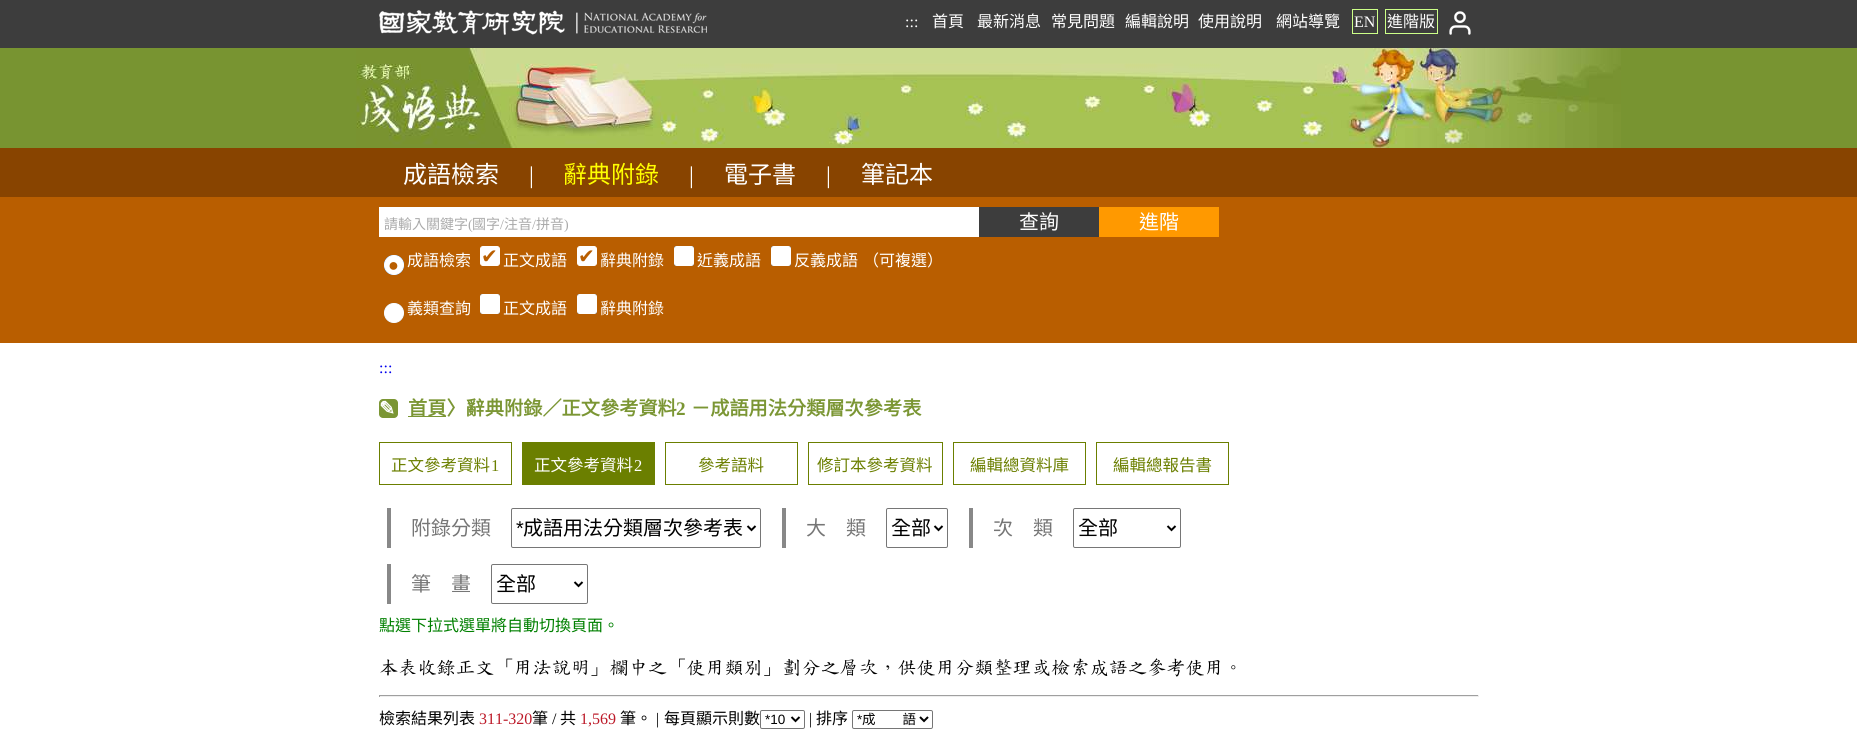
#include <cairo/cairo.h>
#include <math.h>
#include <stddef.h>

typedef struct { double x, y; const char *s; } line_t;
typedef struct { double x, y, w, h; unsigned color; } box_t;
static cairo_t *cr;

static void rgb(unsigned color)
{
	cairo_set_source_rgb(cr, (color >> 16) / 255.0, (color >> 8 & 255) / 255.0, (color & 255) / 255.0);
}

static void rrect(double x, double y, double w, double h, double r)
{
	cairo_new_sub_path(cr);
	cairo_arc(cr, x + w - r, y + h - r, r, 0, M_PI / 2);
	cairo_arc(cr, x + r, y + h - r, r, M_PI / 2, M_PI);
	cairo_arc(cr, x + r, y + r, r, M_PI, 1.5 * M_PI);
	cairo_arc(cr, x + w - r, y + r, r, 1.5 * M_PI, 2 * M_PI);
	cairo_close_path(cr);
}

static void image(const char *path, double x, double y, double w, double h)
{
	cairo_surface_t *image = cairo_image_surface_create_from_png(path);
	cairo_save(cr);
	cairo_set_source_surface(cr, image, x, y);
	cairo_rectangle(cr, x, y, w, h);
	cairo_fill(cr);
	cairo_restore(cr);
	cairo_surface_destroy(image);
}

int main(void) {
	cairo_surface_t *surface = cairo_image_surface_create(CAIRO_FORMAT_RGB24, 1857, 731);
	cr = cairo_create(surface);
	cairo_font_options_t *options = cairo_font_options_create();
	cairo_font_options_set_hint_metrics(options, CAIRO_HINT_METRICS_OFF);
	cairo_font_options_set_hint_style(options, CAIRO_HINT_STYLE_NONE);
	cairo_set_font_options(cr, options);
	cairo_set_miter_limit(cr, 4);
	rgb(0xffffff);
	cairo_paint(cr);
	rgb(0xb95e00);
	cairo_rectangle(cr, 0, 197, 1857, 146);
	cairo_fill(cr);
	rgb(0x3d3d3d);
	cairo_rectangle(cr, 0, 0, 1857, 48);
	cairo_fill(cr);
	image("img/1.png", 379, 10, 328, 25);
	cairo_rectangle(cr, 1352.5, 9.5, 25, 24);
	rgb(0xccff88);
	cairo_set_line_width(cr, 1);
	cairo_stroke(cr);
	cairo_rectangle(cr, 1385.5, 9.5, 52, 24);
	cairo_stroke(cr);
	image("img/2.png", 1449, 11, 22, 24);
	rgb(0x789431);
	cairo_rectangle(cr, 0, 48, 1857, 100);
	cairo_fill(cr);
	image("img/3.png", 356, 48, 1265, 100);
	{
		static const box_t items[] = {
			{0, 148, 1857, 49, 0x884400},
			{379, 207, 600, 30, 0xffffff},
			{979, 207, 120, 30, 0x3d3d3d},
			{1099, 207, 120, 30, 0xff9900},
		};
		for (size_t i = 0; i < sizeof items / sizeof *items; i++) {
			rgb(items[i].color);
			cairo_rectangle(cr, items[i].x, items[i].y, items[i].w, items[i].h);
			cairo_fill(cr);
		}
	}
	cairo_arc(cr, 394, 265, 9.5, 0, 2 * M_PI);
	rgb(0x0075ff);
	cairo_stroke(cr);
	rgb(0xffffff);
	cairo_arc(cr, 394, 265, 9.5, 0, 2 * M_PI);
	cairo_fill_preserve(cr);
	cairo_stroke(cr);
	rrect(480.5, 246.5, 19, 19, 2.5);
	cairo_fill_preserve(cr);
	cairo_stroke(cr);
	rrect(577.5, 246.5, 19, 19, 2.5);
	cairo_fill_preserve(cr);
	cairo_stroke(cr);
	rrect(674.5, 246.5, 19, 19, 1.5);
	rgb(0x767676);
	cairo_stroke(cr);
	rgb(0xffffff);
	rrect(674.5, 246.5, 19, 19, 2.5);
	cairo_fill_preserve(cr);
	cairo_stroke(cr);
	rrect(771.5, 246.5, 19, 19, 1.5);
	rgb(0x767676);
	cairo_stroke(cr);
	rgb(0xffffff);
	rrect(771.5, 246.5, 19, 19, 2.5);
	cairo_fill_preserve(cr);
	cairo_stroke(cr);
	cairo_arc(cr, 394, 313, 9.5, 0, 2 * M_PI);
	rgb(0x767676);
	cairo_stroke(cr);
	rgb(0xffffff);
	cairo_arc(cr, 394, 313, 9.5, 0, 2 * M_PI);
	cairo_fill_preserve(cr);
	cairo_stroke(cr);
	rrect(480.5, 294.5, 19, 19, 1.5);
	rgb(0x767676);
	cairo_stroke(cr);
	rgb(0xffffff);
	rrect(480.5, 294.5, 19, 19, 2.5);
	cairo_fill_preserve(cr);
	cairo_stroke(cr);
	rrect(577.5, 294.5, 19, 19, 1.5);
	rgb(0x767676);
	cairo_stroke(cr);
	rgb(0xffffff);
	rrect(577.5, 294.5, 19, 19, 2.5);
	cairo_fill_preserve(cr);
	cairo_stroke(cr);
	rgb(0x7b9634);
	rrect(379, 399, 19, 19, 4);
	cairo_fill(cr);
	cairo_rectangle(cr, 408, 416, 38, 1);
	cairo_fill(cr);
	cairo_rectangle(cr, 379.5, 442.5, 132, 42);
	rgb(0x6b7f00);
	cairo_stroke(cr);
	cairo_rectangle(cr, 522, 442, 133, 43);
	cairo_fill(cr);
	cairo_rectangle(cr, 665.5, 442.5, 132, 42);
	cairo_stroke(cr);
	cairo_rectangle(cr, 808.5, 442.5, 134, 42);
	cairo_stroke(cr);
	cairo_rectangle(cr, 953.5, 442.5, 132, 42);
	cairo_stroke(cr);
	cairo_rectangle(cr, 1096.5, 442.5, 132, 42);
	cairo_stroke(cr);
	rgb(0x888888);
	cairo_rectangle(cr, 387, 508, 4, 40);
	cairo_fill(cr);
	rrect(511.5, 508.5, 249, 39, 1.5);
	rgb(0x767676);
	cairo_stroke(cr);
	cairo_new_path(cr);
	cairo_move_to(cr, 747.5, 526);
	cairo_line_to(cr, 751.5, 530);
	cairo_line_to(cr, 755.5, 526);
	rgb(0x000000);
	cairo_set_line_width(cr, 2);
	cairo_stroke(cr);
	rgb(0x888888);
	cairo_rectangle(cr, 782, 508, 4, 40);
	cairo_fill(cr);
	rrect(886.5, 508.5, 61, 39, 1.5);
	rgb(0x767676);
	cairo_set_line_width(cr, 1);
	cairo_stroke(cr);
	cairo_new_path(cr);
	cairo_move_to(cr, 934.5, 526);
	cairo_line_to(cr, 938.5, 530);
	cairo_line_to(cr, 942.5, 526);
	rgb(0x000000);
	cairo_set_line_width(cr, 2);
	cairo_stroke(cr);
	rgb(0x888888);
	cairo_rectangle(cr, 969, 508, 4, 40);
	cairo_fill(cr);
	rrect(1073.5, 508.5, 107, 39, 1.5);
	rgb(0x767676);
	cairo_set_line_width(cr, 1);
	cairo_stroke(cr);
	cairo_new_path(cr);
	cairo_move_to(cr, 1167.5, 526);
	cairo_line_to(cr, 1171.5, 530);
	cairo_line_to(cr, 1175.5, 526);
	rgb(0x000000);
	cairo_set_line_width(cr, 2);
	cairo_stroke(cr);
	rgb(0x888888);
	cairo_rectangle(cr, 387, 564, 4, 40);
	cairo_fill(cr);
	rrect(491.5, 564.5, 96, 39, 1.5);
	rgb(0x767676);
	cairo_set_line_width(cr, 1);
	cairo_stroke(cr);
	cairo_new_path(cr);
	cairo_move_to(cr, 574.5, 582);
	cairo_line_to(cr, 578.5, 586);
	cairo_line_to(cr, 582.5, 582);
	rgb(0x000000);
	cairo_set_line_width(cr, 2);
	cairo_stroke(cr);
	{
		static const box_t items[] = {
			{379, 695, 1100, 1, 0x9f9f9f},
			{1478, 695, 1, 2, 0xeeeeee},
			{379, 696, 1100, 1, 0xeeeeee},
			{379, 695, 1, 2, 0x9f9f9f},
		};
		for (size_t i = 0; i < sizeof items / sizeof *items; i++) {
			rgb(items[i].color);
			cairo_rectangle(cr, items[i].x, items[i].y, items[i].w, items[i].h);
			cairo_fill(cr);
		}
	}
	rrect(760.5, 710.5, 44, 18, 1.5);
	rgb(0x767676);
	cairo_set_line_width(cr, 1);
	cairo_stroke(cr);
	cairo_new_path(cr);
	cairo_move_to(cr, 791.5, 717);
	cairo_line_to(cr, 795.5, 721);
	cairo_line_to(cr, 799.5, 717);
	rgb(0x000000);
	cairo_set_line_width(cr, 2);
	cairo_stroke(cr);
	rrect(852.5, 710.5, 80, 18, 1.5);
	rgb(0x767676);
	cairo_set_line_width(cr, 1);
	cairo_stroke(cr);
	cairo_new_path(cr);
	cairo_move_to(cr, 920, 717);
	cairo_line_to(cr, 924, 721);
	cairo_line_to(cr, 928, 717);
	rgb(0x000000);
	cairo_set_line_width(cr, 2);
	cairo_stroke(cr);
	cairo_select_font_face(cr, "Liberation Serif", CAIRO_FONT_SLANT_NORMAL, CAIRO_FONT_WEIGHT_NORMAL);
	cairo_set_font_size(cr, 16);
	rgb(0xffffff);
	cairo_move_to(cr, 905, 27);
	cairo_show_text(cr, ":::");
	cairo_select_font_face(cr, "Noto Sans CJK TC", CAIRO_FONT_SLANT_NORMAL, CAIRO_FONT_WEIGHT_NORMAL);
	{
		static const line_t items[] = {
			{932, 27, "首頁"},
			{977, 27, "最新消息"},
			{1051, 27, "常見問題"},
			{1125, 27, "編輯說明"},
			{1198, 27, "使用說明"},
			{1276, 27, "網站導覽"},
		};
		for (size_t i = 0; i < sizeof items / sizeof *items; i++) {
			cairo_move_to(cr, items[i].x, items[i].y);
			cairo_show_text(cr, items[i].s);
		}
	}
	cairo_select_font_face(cr, "Liberation Serif", CAIRO_FONT_SLANT_NORMAL, CAIRO_FONT_WEIGHT_NORMAL);
	cairo_move_to(cr, 1354, 27);
	cairo_show_text(cr, "EN");
	cairo_select_font_face(cr, "Noto Sans CJK TC", CAIRO_FONT_SLANT_NORMAL, CAIRO_FONT_WEIGHT_NORMAL);
	cairo_move_to(cr, 1387, 27);
	cairo_show_text(cr, "進階版");
	cairo_set_font_size(cr, 24);
	cairo_move_to(cr, 403, 183);
	cairo_show_text(cr, "成語檢索");
	cairo_select_font_face(cr, "Liberation Serif", CAIRO_FONT_SLANT_NORMAL, CAIRO_FONT_WEIGHT_NORMAL);
	cairo_move_to(cr, 529, 183);
	cairo_show_text(cr, "|");
	cairo_select_font_face(cr, "Noto Sans CJK TC", CAIRO_FONT_SLANT_NORMAL, CAIRO_FONT_WEIGHT_NORMAL);
	rgb(0xffff00);
	cairo_move_to(cr, 563, 183);
	cairo_show_text(cr, "辭典附錄");
	cairo_select_font_face(cr, "Liberation Serif", CAIRO_FONT_SLANT_NORMAL, CAIRO_FONT_WEIGHT_NORMAL);
	rgb(0xffffff);
	cairo_move_to(cr, 689, 183);
	cairo_show_text(cr, "|");
	cairo_select_font_face(cr, "Noto Sans CJK TC", CAIRO_FONT_SLANT_NORMAL, CAIRO_FONT_WEIGHT_NORMAL);
	cairo_move_to(cr, 724, 183);
	cairo_show_text(cr, "電子書");
	cairo_select_font_face(cr, "Liberation Serif", CAIRO_FONT_SLANT_NORMAL, CAIRO_FONT_WEIGHT_NORMAL);
	cairo_move_to(cr, 826, 183);
	cairo_show_text(cr, "|");
	cairo_select_font_face(cr, "Noto Sans CJK TC", CAIRO_FONT_SLANT_NORMAL, CAIRO_FONT_WEIGHT_NORMAL);
	cairo_move_to(cr, 861, 183);
	cairo_show_text(cr, "筆記本");
	cairo_set_font_size(cr, 14);
	rgb(0xaaaaaa);
	cairo_move_to(cr, 384, 229);
	cairo_show_text(cr, "請輸入關鍵字");
	cairo_select_font_face(cr, "Liberation Serif", CAIRO_FONT_SLANT_NORMAL, CAIRO_FONT_WEIGHT_NORMAL);
	cairo_move_to(cr, 468, 229);
	cairo_show_text(cr, "(");
	cairo_select_font_face(cr, "Noto Sans CJK TC", CAIRO_FONT_SLANT_NORMAL, CAIRO_FONT_WEIGHT_NORMAL);
	cairo_move_to(cr, 472, 229);
	cairo_show_text(cr, "國字");
	cairo_select_font_face(cr, "Liberation Serif", CAIRO_FONT_SLANT_NORMAL, CAIRO_FONT_WEIGHT_NORMAL);
	cairo_move_to(cr, 500, 229);
	cairo_show_text(cr, "/");
	cairo_select_font_face(cr, "Noto Sans CJK TC", CAIRO_FONT_SLANT_NORMAL, CAIRO_FONT_WEIGHT_NORMAL);
	cairo_move_to(cr, 504, 229);
	cairo_show_text(cr, "注音");
	cairo_select_font_face(cr, "Liberation Serif", CAIRO_FONT_SLANT_NORMAL, CAIRO_FONT_WEIGHT_NORMAL);
	cairo_move_to(cr, 532, 229);
	cairo_show_text(cr, "/");
	cairo_select_font_face(cr, "Noto Sans CJK TC", CAIRO_FONT_SLANT_NORMAL, CAIRO_FONT_WEIGHT_NORMAL);
	cairo_move_to(cr, 536, 229);
	cairo_show_text(cr, "拼音");
	cairo_select_font_face(cr, "Liberation Serif", CAIRO_FONT_SLANT_NORMAL, CAIRO_FONT_WEIGHT_NORMAL);
	cairo_move_to(cr, 564, 229);
	cairo_show_text(cr, ")");
	cairo_select_font_face(cr, "Noto Sans CJK TC", CAIRO_FONT_SLANT_NORMAL, CAIRO_FONT_WEIGHT_NORMAL);
	cairo_set_font_size(cr, 20);
	rgb(0xffffff);
	cairo_move_to(cr, 1019, 229);
	cairo_show_text(cr, "查詢");
	cairo_move_to(cr, 1139, 229);
	cairo_show_text(cr, "進階");
	cairo_select_font_face(cr, "Liberation Serif", CAIRO_FONT_SLANT_NORMAL, CAIRO_FONT_WEIGHT_NORMAL);
	cairo_set_font_size(cr, 18);
	rgb(0xb95e00);
	cairo_move_to(cr, 388, 271);
	cairo_show_text(cr, "●");
	cairo_select_font_face(cr, "Noto Sans CJK TC", CAIRO_FONT_SLANT_NORMAL, CAIRO_FONT_WEIGHT_NORMAL);
	cairo_set_font_size(cr, 16);
	rgb(0xffffff);
	cairo_move_to(cr, 407, 266);
	cairo_show_text(cr, "成語檢索");
	cairo_select_font_face(cr, "DejaVu Sans", CAIRO_FONT_SLANT_NORMAL, CAIRO_FONT_WEIGHT_NORMAL);
	cairo_set_font_size(cr, 20);
	rgb(0xb95e00);
	cairo_move_to(cr, 481, 263);
	cairo_show_text(cr, "✔");
	cairo_select_font_face(cr, "Noto Sans CJK TC", CAIRO_FONT_SLANT_NORMAL, CAIRO_FONT_WEIGHT_NORMAL);
	cairo_set_font_size(cr, 16);
	rgb(0xffffff);
	cairo_move_to(cr, 503, 266);
	cairo_show_text(cr, "正文成語");
	cairo_select_font_face(cr, "DejaVu Sans", CAIRO_FONT_SLANT_NORMAL, CAIRO_FONT_WEIGHT_NORMAL);
	cairo_set_font_size(cr, 20);
	rgb(0xb95e00);
	cairo_move_to(cr, 578, 263);
	cairo_show_text(cr, "✔");
	cairo_select_font_face(cr, "Noto Sans CJK TC", CAIRO_FONT_SLANT_NORMAL, CAIRO_FONT_WEIGHT_NORMAL);
	cairo_set_font_size(cr, 16);
	rgb(0xffffff);
	{
		static const line_t items[] = {
			{600, 266, "辭典附錄"},
			{697, 266, "近義成語"},
			{794, 266, "反義成語"},
			{863, 266, "（可複選）"},
			{407, 314, "義類查詢"},
			{503, 314, "正文成語"},
			{600, 314, "辭典附錄"},
		};
		for (size_t i = 0; i < sizeof items / sizeof *items; i++) {
			cairo_move_to(cr, items[i].x, items[i].y);
			cairo_show_text(cr, items[i].s);
		}
	}
	cairo_select_font_face(cr, "Liberation Serif", CAIRO_FONT_SLANT_NORMAL, CAIRO_FONT_WEIGHT_NORMAL);
	rgb(0x0000ee);
	cairo_move_to(cr, 379, 373);
	cairo_show_text(cr, ":::");
	cairo_select_font_face(cr, "DejaVu Sans", CAIRO_FONT_SLANT_NORMAL, CAIRO_FONT_WEIGHT_BOLD);
	cairo_set_font_size(cr, 19.2);
	rgb(0xffffff);
	cairo_move_to(cr, 379, 415);
	cairo_show_text(cr, "✎");
	cairo_select_font_face(cr, "Noto Sans CJK TC", CAIRO_FONT_SLANT_NORMAL, CAIRO_FONT_WEIGHT_BOLD);
	rgb(0x7b9634);
	cairo_move_to(cr, 408, 415);
	cairo_show_text(cr, "首頁〉辭典附錄／正文參考資料");
	cairo_select_font_face(cr, "Liberation Serif", CAIRO_FONT_SLANT_NORMAL, CAIRO_FONT_WEIGHT_BOLD);
	cairo_move_to(cr, 676, 415);
	cairo_show_text(cr, "2");
	cairo_select_font_face(cr, "Noto Sans CJK TC", CAIRO_FONT_SLANT_NORMAL, CAIRO_FONT_WEIGHT_BOLD);
	cairo_move_to(cr, 691, 415);
	cairo_show_text(cr, "－成語用法分類層次參考表");
	cairo_select_font_face(cr, "Noto Sans CJK TC", CAIRO_FONT_SLANT_NORMAL, CAIRO_FONT_WEIGHT_NORMAL);
	cairo_set_font_size(cr, 16.5);
	rgb(0x6b7f00);
	cairo_move_to(cr, 391, 471);
	cairo_show_text(cr, "正文參考資料");
	cairo_select_font_face(cr, "Liberation Serif", CAIRO_FONT_SLANT_NORMAL, CAIRO_FONT_WEIGHT_NORMAL);
	cairo_move_to(cr, 491, 471);
	cairo_show_text(cr, "1");
	cairo_select_font_face(cr, "Noto Sans CJK TC", CAIRO_FONT_SLANT_NORMAL, CAIRO_FONT_WEIGHT_NORMAL);
	rgb(0xffffff);
	cairo_move_to(cr, 534, 471);
	cairo_show_text(cr, "正文參考資料");
	cairo_select_font_face(cr, "Liberation Serif", CAIRO_FONT_SLANT_NORMAL, CAIRO_FONT_WEIGHT_NORMAL);
	cairo_move_to(cr, 634, 471);
	cairo_show_text(cr, "2");
	cairo_select_font_face(cr, "Noto Sans CJK TC", CAIRO_FONT_SLANT_NORMAL, CAIRO_FONT_WEIGHT_NORMAL);
	rgb(0x6b7f00);
	{
		static const line_t items[] = {
			{698, 471, "參考語料"},
			{817, 471, "修訂本參考資料"},
			{970, 471, "編輯總資料庫"},
			{1113, 471, "編輯總報告書"},
		};
		for (size_t i = 0; i < sizeof items / sizeof *items; i++) {
			cairo_move_to(cr, items[i].x, items[i].y);
			cairo_show_text(cr, items[i].s);
		}
	}
	cairo_set_font_size(cr, 20);
	rgb(0x767676);
	cairo_move_to(cr, 411, 535);
	cairo_show_text(cr, "附錄分類");
	cairo_select_font_face(cr, "Liberation Sans", CAIRO_FONT_SLANT_NORMAL, CAIRO_FONT_WEIGHT_NORMAL);
	rgb(0x000000);
	cairo_move_to(cr, 516, 535);
	cairo_show_text(cr, "*");
	cairo_select_font_face(cr, "Noto Sans CJK TC", CAIRO_FONT_SLANT_NORMAL, CAIRO_FONT_WEIGHT_NORMAL);
	cairo_move_to(cr, 523, 535);
	cairo_show_text(cr, "成語用法分類層次參考表");
	rgb(0x767676);
	cairo_move_to(cr, 806, 535);
	cairo_show_text(cr, "大　類");
	rgb(0x000000);
	cairo_move_to(cr, 891, 535);
	cairo_show_text(cr, "全部");
	rgb(0x767676);
	cairo_move_to(cr, 993, 535);
	cairo_show_text(cr, "次　類");
	rgb(0x000000);
	cairo_move_to(cr, 1078, 535);
	cairo_show_text(cr, "全部");
	rgb(0x767676);
	cairo_move_to(cr, 411, 591);
	cairo_show_text(cr, "筆　畫");
	rgb(0x000000);
	cairo_move_to(cr, 496, 591);
	cairo_show_text(cr, "全部");
	cairo_set_font_size(cr, 16);
	rgb(0x008000);
	cairo_move_to(cr, 379, 631);
	cairo_show_text(cr, "點選下拉式選單將自動切換頁面。");
	cairo_select_font_face(cr, "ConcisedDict", CAIRO_FONT_SLANT_NORMAL, CAIRO_FONT_WEIGHT_NORMAL);
	cairo_set_font_size(cr, 19.2);
	rgb(0x000000);
	cairo_move_to(cr, 379, 673);
	cairo_show_text(cr, "本表收錄正文「用法說明」欄中之「使用類別」劃分之層次，供使用分類整理或檢索成語之參考使用。");
	cairo_select_font_face(cr, "Noto Sans CJK TC", CAIRO_FONT_SLANT_NORMAL, CAIRO_FONT_WEIGHT_NORMAL);
	cairo_set_font_size(cr, 16);
	cairo_move_to(cr, 379, 724);
	cairo_show_text(cr, "檢索結果列表");
	cairo_select_font_face(cr, "Liberation Serif", CAIRO_FONT_SLANT_NORMAL, CAIRO_FONT_WEIGHT_NORMAL);
	rgb(0xbc1928);
	cairo_move_to(cr, 479, 724);
	cairo_show_text(cr, "311-320");
	cairo_select_font_face(cr, "Noto Sans CJK TC", CAIRO_FONT_SLANT_NORMAL, CAIRO_FONT_WEIGHT_NORMAL);
	rgb(0x000000);
	cairo_move_to(cr, 532, 724);
	cairo_show_text(cr, "筆");
	cairo_select_font_face(cr, "Liberation Serif", CAIRO_FONT_SLANT_NORMAL, CAIRO_FONT_WEIGHT_NORMAL);
	cairo_move_to(cr, 552, 724);
	cairo_show_text(cr, "/");
	cairo_select_font_face(cr, "Noto Sans CJK TC", CAIRO_FONT_SLANT_NORMAL, CAIRO_FONT_WEIGHT_NORMAL);
	cairo_move_to(cr, 560, 724);
	cairo_show_text(cr, "共");
	cairo_select_font_face(cr, "Liberation Serif", CAIRO_FONT_SLANT_NORMAL, CAIRO_FONT_WEIGHT_NORMAL);
	rgb(0xbc1928);
	cairo_move_to(cr, 580, 724);
	cairo_show_text(cr, "1,569");
	cairo_select_font_face(cr, "Noto Sans CJK TC", CAIRO_FONT_SLANT_NORMAL, CAIRO_FONT_WEIGHT_NORMAL);
	rgb(0x000000);
	cairo_move_to(cr, 620, 724);
	cairo_show_text(cr, "筆。");
	cairo_select_font_face(cr, "Liberation Serif", CAIRO_FONT_SLANT_NORMAL, CAIRO_FONT_WEIGHT_NORMAL);
	cairo_move_to(cr, 656, 724);
	cairo_show_text(cr, "|");
	cairo_select_font_face(cr, "Noto Sans CJK TC", CAIRO_FONT_SLANT_NORMAL, CAIRO_FONT_WEIGHT_NORMAL);
	cairo_move_to(cr, 664, 724);
	cairo_show_text(cr, "每頁顯示則數");
	cairo_select_font_face(cr, "Liberation Sans", CAIRO_FONT_SLANT_NORMAL, CAIRO_FONT_WEIGHT_NORMAL);
	cairo_set_font_size(cr, 13.5);
	cairo_move_to(cr, 765, 724);
	cairo_show_text(cr, "*10");
	cairo_select_font_face(cr, "Liberation Serif", CAIRO_FONT_SLANT_NORMAL, CAIRO_FONT_WEIGHT_NORMAL);
	cairo_set_font_size(cr, 16);
	cairo_move_to(cr, 809, 724);
	cairo_show_text(cr, "|");
	cairo_select_font_face(cr, "Noto Sans CJK TC", CAIRO_FONT_SLANT_NORMAL, CAIRO_FONT_WEIGHT_NORMAL);
	cairo_move_to(cr, 816, 724);
	cairo_show_text(cr, "排序");
	cairo_select_font_face(cr, "Liberation Sans", CAIRO_FONT_SLANT_NORMAL, CAIRO_FONT_WEIGHT_NORMAL);
	cairo_set_font_size(cr, 13.5);
	cairo_move_to(cr, 857, 724);
	cairo_show_text(cr, "*");
	cairo_select_font_face(cr, "Noto Sans CJK TC", CAIRO_FONT_SLANT_NORMAL, CAIRO_FONT_WEIGHT_NORMAL);
	cairo_move_to(cr, 862, 724);
	cairo_show_text(cr, "成　　語");
	cairo_surface_write_to_png(surface, "page.png");
	cairo_font_options_destroy(options);
	cairo_destroy(cr);
	cairo_surface_destroy(surface);
	return 0;
}
